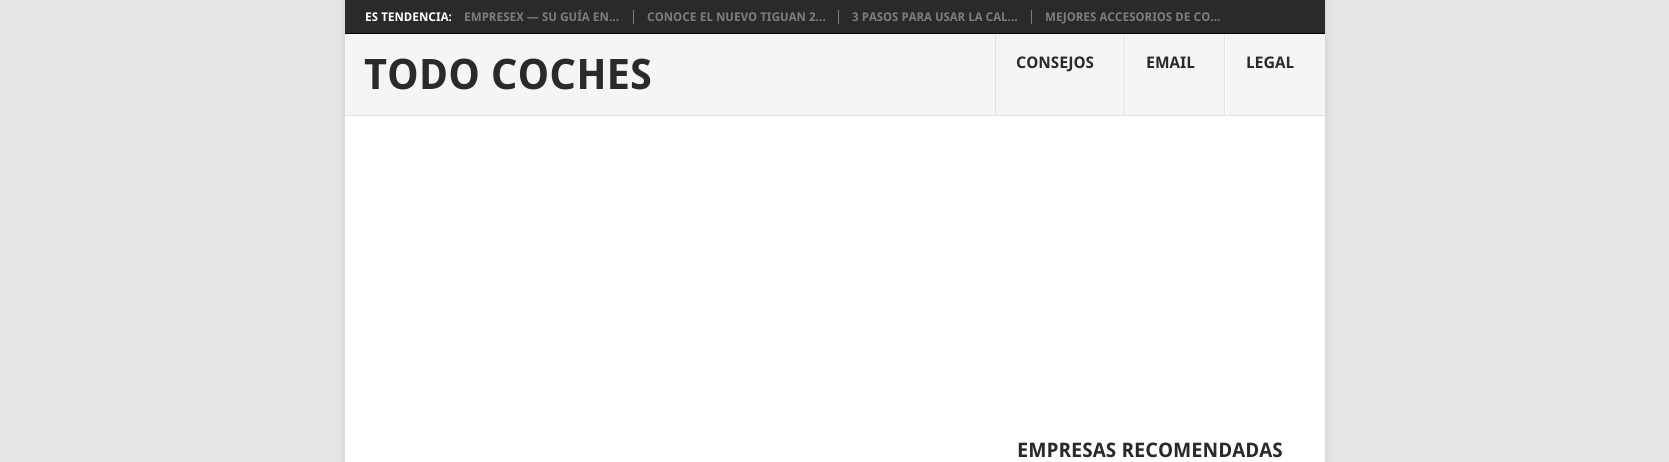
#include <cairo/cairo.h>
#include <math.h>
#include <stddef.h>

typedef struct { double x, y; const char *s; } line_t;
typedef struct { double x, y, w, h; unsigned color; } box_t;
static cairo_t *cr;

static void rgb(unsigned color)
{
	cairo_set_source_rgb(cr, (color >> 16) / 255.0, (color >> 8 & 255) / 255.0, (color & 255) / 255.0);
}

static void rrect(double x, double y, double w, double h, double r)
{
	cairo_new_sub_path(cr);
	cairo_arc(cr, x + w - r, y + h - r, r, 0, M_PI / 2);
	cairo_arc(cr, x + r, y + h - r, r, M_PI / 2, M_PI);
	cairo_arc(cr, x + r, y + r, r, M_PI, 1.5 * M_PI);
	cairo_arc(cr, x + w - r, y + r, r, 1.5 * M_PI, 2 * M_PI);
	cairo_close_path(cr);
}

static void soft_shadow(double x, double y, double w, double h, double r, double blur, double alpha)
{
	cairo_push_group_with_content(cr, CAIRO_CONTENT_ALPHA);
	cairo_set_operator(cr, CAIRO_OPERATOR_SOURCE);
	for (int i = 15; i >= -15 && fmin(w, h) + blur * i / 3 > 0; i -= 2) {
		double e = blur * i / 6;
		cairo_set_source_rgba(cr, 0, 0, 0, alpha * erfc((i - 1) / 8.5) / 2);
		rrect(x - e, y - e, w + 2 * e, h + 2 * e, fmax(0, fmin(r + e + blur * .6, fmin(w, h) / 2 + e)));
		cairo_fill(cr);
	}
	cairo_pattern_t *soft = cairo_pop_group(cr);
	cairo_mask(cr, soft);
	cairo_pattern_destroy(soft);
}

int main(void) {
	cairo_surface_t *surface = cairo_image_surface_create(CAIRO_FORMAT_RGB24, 1669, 462);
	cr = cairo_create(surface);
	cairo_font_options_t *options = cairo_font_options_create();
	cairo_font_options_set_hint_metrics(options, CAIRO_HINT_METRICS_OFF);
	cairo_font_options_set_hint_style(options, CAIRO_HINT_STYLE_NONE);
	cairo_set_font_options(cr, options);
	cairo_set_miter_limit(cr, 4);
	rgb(0xe7e5e6);
	cairo_paint(cr);
	rgb(0x323232);
	soft_shadow(345, 0, 980, 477, 0, 5, 0.17);
	{
		static const box_t items[] = {
			{345, 116, 980, 346, 0xffffff},
			{345, 0, 980, 33, 0x2a2a2a},
			{345, 33, 980, 1, 0x000000},
			{633, 10, 1, 14, 0x7d7d7d},
			{838, 10, 1, 14, 0x7d7d7d},
			{1031, 10, 1, 14, 0x7d7d7d},
			{345, 34, 980, 81, 0xf5f5f5},
			{1124, 34, 1, 82, 0xe2e2e2},
			{995, 34, 1, 82, 0xe2e2e2},
			{1224, 34, 1, 82, 0xe2e2e2},
			{1125, 34, 1, 82, 0xffffff},
			{1225, 34, 1, 82, 0xffffff},
			{345, 115, 980, 1, 0xe2e2e2},
		};
		for (size_t i = 0; i < sizeof items / sizeof *items; i++) {
			rgb(items[i].color);
			cairo_rectangle(cr, items[i].x, items[i].y, items[i].w, items[i].h);
			cairo_fill(cr);
		}
	}
	cairo_select_font_face(cr, "Droid Sans", CAIRO_FONT_SLANT_NORMAL, CAIRO_FONT_WEIGHT_BOLD);
	cairo_set_font_size(cr, 12);
	rgb(0xffffff);
	cairo_move_to(cr, 365, 21);
	cairo_show_text(cr, "ES TENDENCIA:");
	rgb(0x7d7d7d);
	{
		static const line_t items[] = {
			{464, 21, "EMPRESEX — SU GUÍA EN..."},
			{647, 21, "CONOCE EL NUEVO TIGUAN 2..."},
			{852, 21, "3 PASOS PARA USAR LA CAL..."},
			{1045, 21, "MEJORES ACCESORIOS DE CO..."},
		};
		for (size_t i = 0; i < sizeof items / sizeof *items; i++) {
			cairo_move_to(cr, items[i].x, items[i].y);
			cairo_show_text(cr, items[i].s);
		}
	}
	cairo_set_font_size(cr, 42);
	rgb(0x2a2a2a);
	cairo_move_to(cr, 364, 89);
	cairo_show_text(cr, "TODO COCHES");
	cairo_set_font_size(cr, 16);
	{
		static const line_t items[] = {
			{1016, 68, "CONSEJOS"},
			{1146, 68, "EMAIL"},
			{1246, 68, "LEGAL"},
		};
		for (size_t i = 0; i < sizeof items / sizeof *items; i++) {
			cairo_move_to(cr, items[i].x, items[i].y);
			cairo_show_text(cr, items[i].s);
		}
	}
	cairo_set_font_size(cr, 20);
	cairo_move_to(cr, 1017, 457);
	cairo_show_text(cr, "EMPRESAS RECOMENDADAS");
	cairo_surface_write_to_png(surface, "page.png");
	cairo_font_options_destroy(options);
	cairo_destroy(cr);
	cairo_surface_destroy(surface);
	return 0;
}
